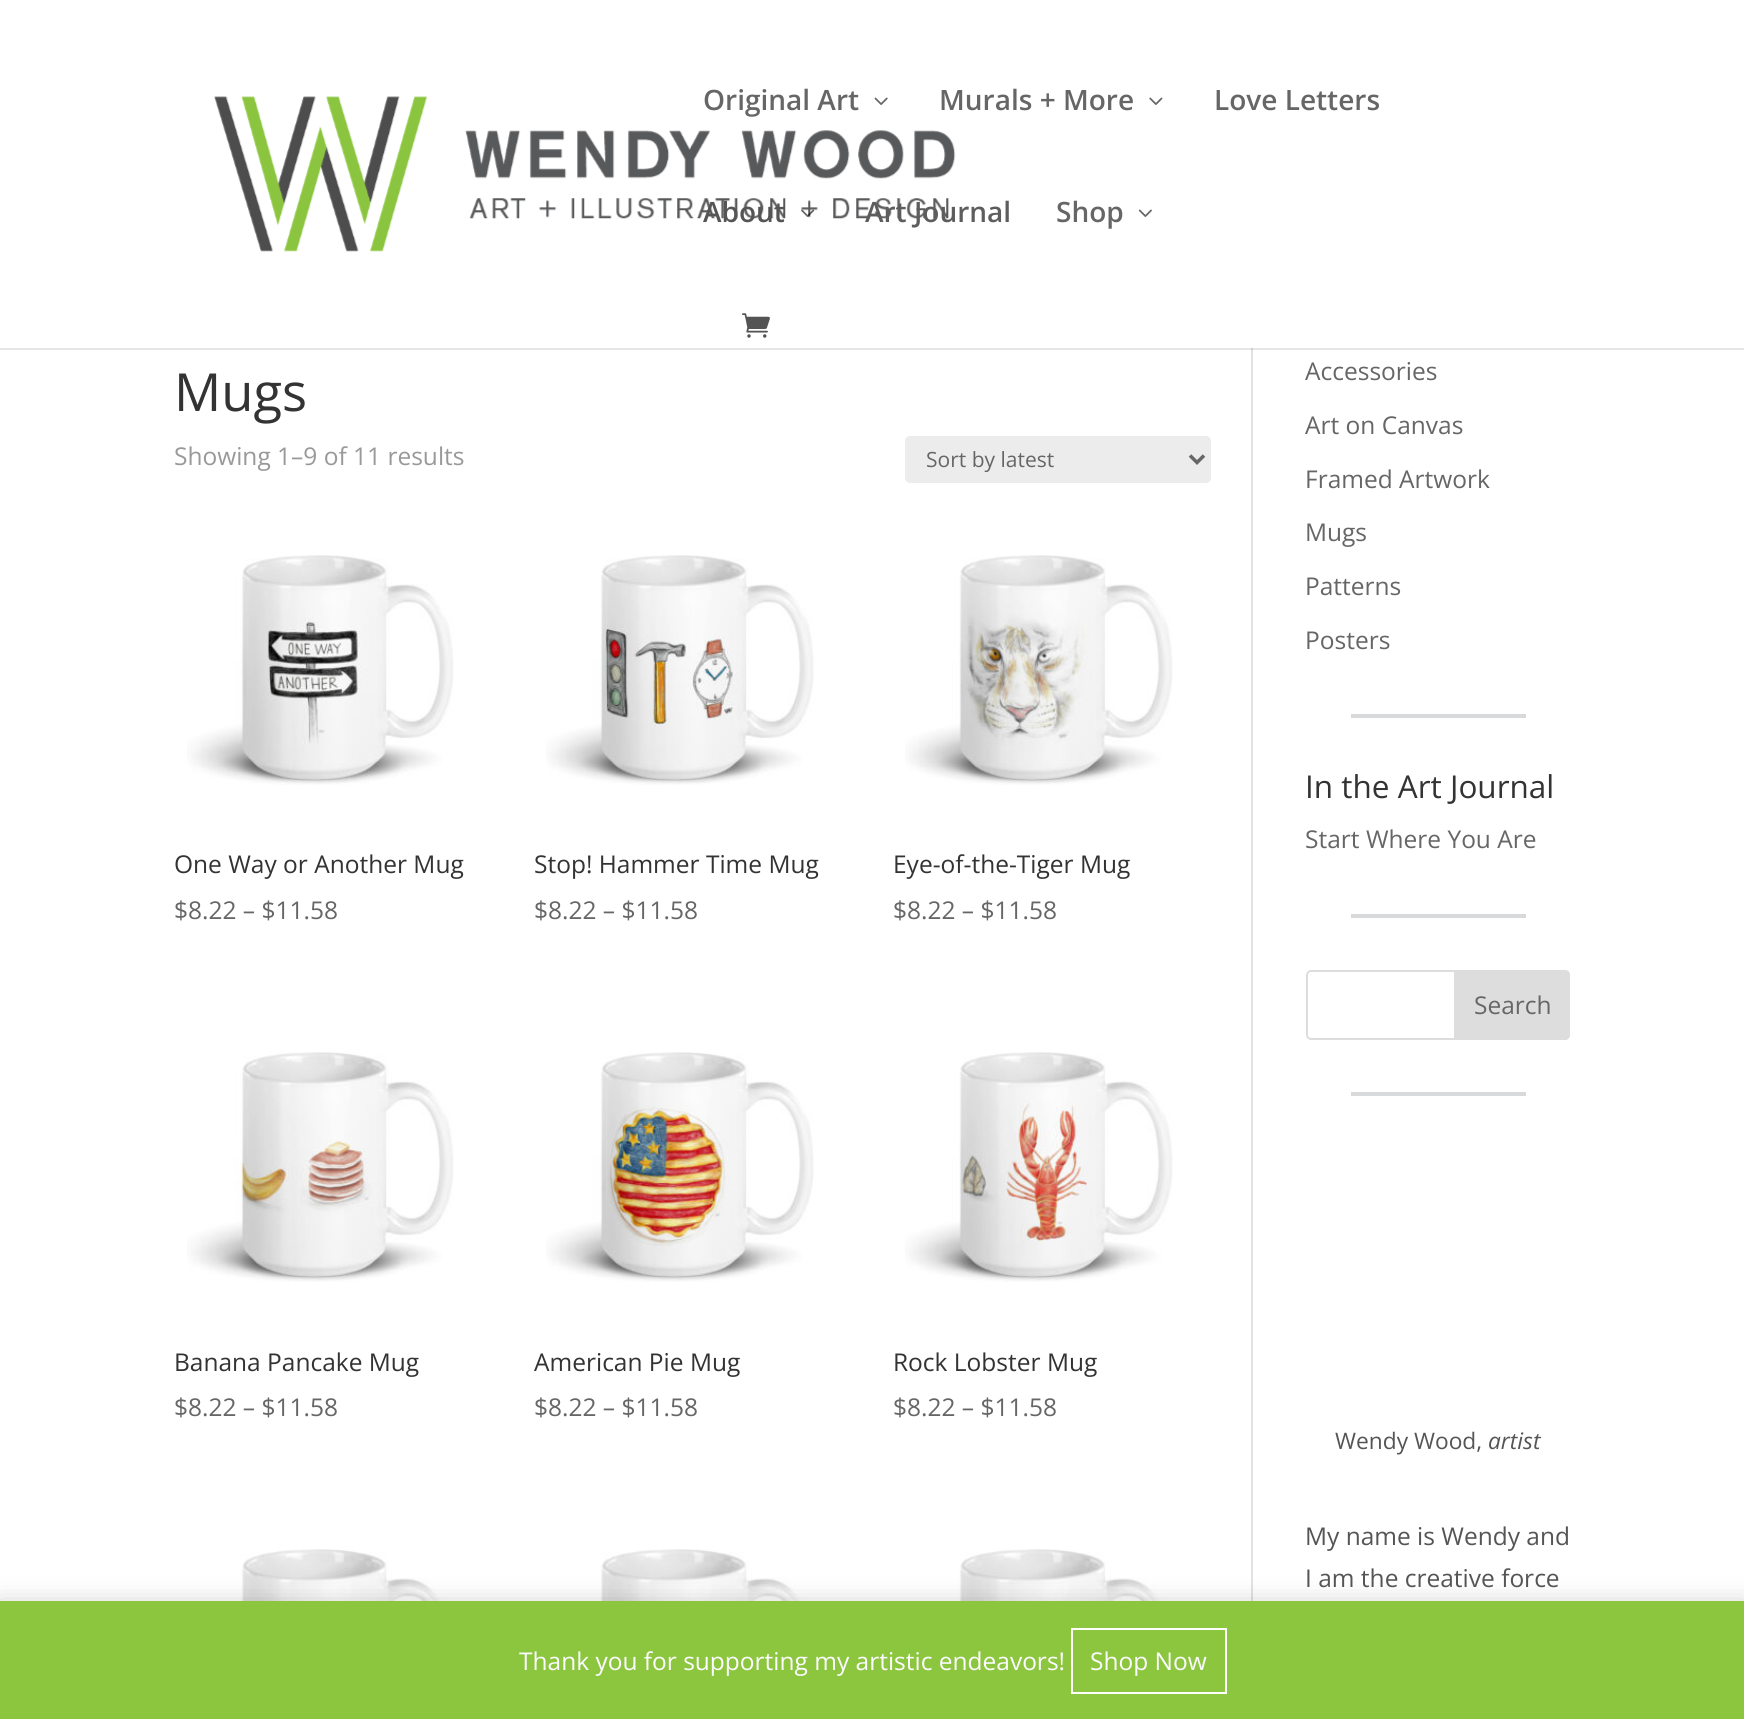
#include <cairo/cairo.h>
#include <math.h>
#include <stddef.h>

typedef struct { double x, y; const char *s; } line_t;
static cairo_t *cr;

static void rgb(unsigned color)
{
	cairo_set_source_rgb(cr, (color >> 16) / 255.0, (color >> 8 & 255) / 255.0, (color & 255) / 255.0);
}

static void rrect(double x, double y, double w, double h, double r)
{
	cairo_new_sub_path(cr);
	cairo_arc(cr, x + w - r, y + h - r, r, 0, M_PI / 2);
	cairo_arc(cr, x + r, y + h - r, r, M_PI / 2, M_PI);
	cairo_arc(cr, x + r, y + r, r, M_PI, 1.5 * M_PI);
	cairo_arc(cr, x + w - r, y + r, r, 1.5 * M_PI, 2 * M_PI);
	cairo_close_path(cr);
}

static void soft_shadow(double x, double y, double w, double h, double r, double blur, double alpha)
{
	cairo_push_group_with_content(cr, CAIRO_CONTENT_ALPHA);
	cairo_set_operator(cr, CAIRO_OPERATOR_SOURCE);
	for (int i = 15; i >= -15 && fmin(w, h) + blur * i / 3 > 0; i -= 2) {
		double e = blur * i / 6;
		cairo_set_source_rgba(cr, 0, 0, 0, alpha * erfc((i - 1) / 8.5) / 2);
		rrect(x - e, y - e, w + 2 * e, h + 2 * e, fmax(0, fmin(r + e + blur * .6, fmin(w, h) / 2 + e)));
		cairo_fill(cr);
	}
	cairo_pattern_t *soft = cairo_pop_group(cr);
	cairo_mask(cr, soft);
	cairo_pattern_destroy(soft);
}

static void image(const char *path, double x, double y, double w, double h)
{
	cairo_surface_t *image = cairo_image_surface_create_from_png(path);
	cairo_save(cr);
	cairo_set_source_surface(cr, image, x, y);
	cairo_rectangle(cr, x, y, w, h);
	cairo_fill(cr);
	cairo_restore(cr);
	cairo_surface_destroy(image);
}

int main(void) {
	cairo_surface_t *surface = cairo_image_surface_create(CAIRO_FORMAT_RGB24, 1744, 1719);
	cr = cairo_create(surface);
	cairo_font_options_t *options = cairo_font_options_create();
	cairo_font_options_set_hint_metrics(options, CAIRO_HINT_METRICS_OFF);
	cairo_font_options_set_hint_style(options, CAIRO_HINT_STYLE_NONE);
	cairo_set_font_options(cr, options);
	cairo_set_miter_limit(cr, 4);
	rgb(0xffffff);
	cairo_paint(cr);
	rgb(0xe2e2e2);
	cairo_rectangle(cr, 1251, 348, 2, 1253);
	cairo_fill(cr);
	cairo_set_source_rgba(cr, 0, 0, 0, 0.1);
	cairo_new_path(cr);
	cairo_move_to(cr, 0, 348);
	cairo_line_to(cr, 0, 350);
	cairo_line_to(cr, 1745, 350);
	cairo_line_to(cr, 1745, 2);
	cairo_line_to(cr, 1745, 348);
	cairo_close_path(cr);
	cairo_fill(cr);
	image("img/1.png", 214, 96, 742, 156);
	image("img/2.png", 874, 97, 14, 8);
	image("img/3.png", 1149, 97, 14, 8);
	image("img/4.png", 801, 209, 14, 8);
	image("img/5.png", 1138, 209, 14, 8);
	image("img/6.png", 742, 313, 28, 25);
	rgb(0xececec);
	rrect(905, 436, 306, 47, 5);
	cairo_fill(cr);
	cairo_new_path(cr);
	cairo_move_to(cr, 1190, 455.5);
	cairo_line_to(cr, 1197, 462.5);
	cairo_line_to(cr, 1204, 455.5);
	rgb(0x666666);
	cairo_set_line_width(cr, 3.5);
	cairo_stroke(cr);
	image("img/7.png", 187, 555, 267, 230);
	image("img/8.png", 546, 555, 268, 230);
	image("img/9.png", 905, 555, 268, 230);
	image("img/10.png", 187, 1052, 267, 230);
	image("img/11.png", 546, 1052, 268, 230);
	image("img/12.png", 905, 1052, 268, 230);
	image("img/13.png", 241, 1549, 213, 52);
	image("img/14.png", 600, 1549, 214, 52);
	image("img/15.png", 959, 1549, 214, 52);
	rgb(0xd7d9da);
	cairo_rectangle(cr, 1351, 714, 175, 4);
	cairo_fill(cr);
	cairo_rectangle(cr, 1351, 914, 175, 4);
	cairo_fill(cr);
	rrect(1307, 971, 262, 68, 4);
	rgb(0xdddddd);
	cairo_set_line_width(cr, 2);
	cairo_stroke(cr);
	cairo_new_path(cr);
	cairo_move_to(cr, 1455, 971);
	cairo_line_to(cr, 1565, 971);
	cairo_curve_to(cr, 1567, 971, 1569, 973, 1569, 975);
	cairo_line_to(cr, 1569, 1035);
	cairo_curve_to(cr, 1569, 1037, 1567, 1039, 1565, 1039);
	cairo_line_to(cr, 1455, 1039);
	cairo_close_path(cr);
	cairo_fill_preserve(cr);
	cairo_stroke(cr);
	rgb(0xd7d9da);
	cairo_rectangle(cr, 1351, 1092, 175, 4);
	cairo_fill(cr);
	rgb(0x000000);
	soft_shadow(0, 1603, 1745, 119, 0, 12, 0.2);
	rgb(0x8cc63f);
	cairo_rectangle(cr, 0, 1601, 1744, 118);
	cairo_fill(cr);
	cairo_rectangle(cr, 1072, 1629, 154, 64);
	rgb(0xffffff);
	cairo_stroke(cr);
	cairo_select_font_face(cr, "Open Sans SemiBold", CAIRO_FONT_SLANT_NORMAL, CAIRO_FONT_WEIGHT_NORMAL);
	cairo_set_font_size(cr, 28);
	rgb(0x666666);
	{
		static const line_t items[] = {
			{703, 110, "Original Art"},
			{939, 110, "Murals + More"},
			{1214, 110, "Love Letters"},
		};
		for (size_t i = 0; i < sizeof items / sizeof *items; i++) {
			cairo_move_to(cr, items[i].x, items[i].y);
			cairo_show_text(cr, items[i].s);
		}
	}
	rgb(0x555555);
	cairo_move_to(cr, 703, 222);
	cairo_show_text(cr, "About");
	rgb(0x5d5d5d);
	cairo_move_to(cr, 865, 222);
	cairo_show_text(cr, "Art Journal");
	rgb(0x666666);
	cairo_move_to(cr, 1056, 222);
	cairo_show_text(cr, "Shop");
	cairo_select_font_face(cr, "Open Sans", CAIRO_FONT_SLANT_NORMAL, CAIRO_FONT_WEIGHT_NORMAL);
	cairo_set_font_size(cr, 52.5);
	rgb(0x333333);
	cairo_move_to(cr, 174, 411);
	cairo_show_text(cr, "Mugs");
	cairo_set_font_size(cr, 24.5);
	rgb(0x999999);
	cairo_move_to(cr, 174, 465);
	cairo_show_text(cr, "Showing 1–9 of 11 results");
	cairo_set_font_size(cr, 21);
	rgb(0x666666);
	cairo_move_to(cr, 926, 467);
	cairo_show_text(cr, "Sort by latest");
	cairo_set_font_size(cr, 24.5);
	rgb(0x333333);
	cairo_move_to(cr, 174, 873);
	cairo_show_text(cr, "One Way or Another Mug");
	rgb(0x666666);
	cairo_move_to(cr, 174, 919);
	cairo_show_text(cr, "$8.22 – $11.58");
	rgb(0x333333);
	cairo_move_to(cr, 534, 873);
	cairo_show_text(cr, "Stop! Hammer Time Mug");
	rgb(0x666666);
	cairo_move_to(cr, 534, 919);
	cairo_show_text(cr, "$8.22 – $11.58");
	rgb(0x333333);
	cairo_move_to(cr, 893, 873);
	cairo_show_text(cr, "Eye-of-the-Tiger Mug");
	rgb(0x666666);
	cairo_move_to(cr, 893, 919);
	cairo_show_text(cr, "$8.22 – $11.58");
	rgb(0x333333);
	cairo_move_to(cr, 174, 1371);
	cairo_show_text(cr, "Banana Pancake Mug");
	rgb(0x666666);
	cairo_move_to(cr, 174, 1416);
	cairo_show_text(cr, "$8.22 – $11.58");
	rgb(0x333333);
	cairo_move_to(cr, 534, 1371);
	cairo_show_text(cr, "American Pie Mug");
	rgb(0x666666);
	cairo_move_to(cr, 534, 1416);
	cairo_show_text(cr, "$8.22 – $11.58");
	rgb(0x333333);
	cairo_move_to(cr, 893, 1371);
	cairo_show_text(cr, "Rock Lobster Mug");
	rgb(0x666666);
	{
		static const line_t items[] = {
			{893, 1416, "$8.22 – $11.58"},
			{1305, 380, "Accessories"},
			{1305, 434, "Art on Canvas"},
			{1305, 488, "Framed Artwork"},
			{1305, 541, "Mugs"},
			{1305, 595, "Patterns"},
			{1305, 649, "Posters"},
		};
		for (size_t i = 0; i < sizeof items / sizeof *items; i++) {
			cairo_move_to(cr, items[i].x, items[i].y);
			cairo_show_text(cr, items[i].s);
		}
	}
	cairo_set_font_size(cr, 31.5);
	rgb(0x333333);
	cairo_move_to(cr, 1305, 798);
	cairo_show_text(cr, "In the Art Journal");
	cairo_set_font_size(cr, 24.5);
	rgb(0x666666);
	cairo_move_to(cr, 1305, 848);
	cairo_show_text(cr, "Start Where You Are");
	cairo_move_to(cr, 1474, 1014);
	cairo_show_text(cr, "Search");
	cairo_set_font_size(cr, 22.75);
	rgb(0x555555);
	cairo_move_to(cr, 1335, 1449);
	cairo_show_text(cr, "Wendy Wood,");
	cairo_select_font_face(cr, "Open Sans", CAIRO_FONT_SLANT_ITALIC, CAIRO_FONT_WEIGHT_NORMAL);
	cairo_move_to(cr, 1488, 1449);
	cairo_show_text(cr, "artist");
	cairo_select_font_face(cr, "Open Sans", CAIRO_FONT_SLANT_NORMAL, CAIRO_FONT_WEIGHT_NORMAL);
	cairo_set_font_size(cr, 24.5);
	cairo_move_to(cr, 1305, 1545);
	cairo_show_text(cr, "My name is Wendy and");
	cairo_move_to(cr, 1305, 1587);
	cairo_show_text(cr, "I am the creative force");
	rgb(0xfcfbfe);
	cairo_move_to(cr, 519, 1670);
	cairo_show_text(cr, "Thank you for supporting my artistic endeavors!");
	cairo_move_to(cr, 1090, 1670);
	cairo_show_text(cr, "Shop Now");
	cairo_surface_write_to_png(surface, "page.png");
	cairo_font_options_destroy(options);
	cairo_destroy(cr);
	cairo_surface_destroy(surface);
	return 0;
}
